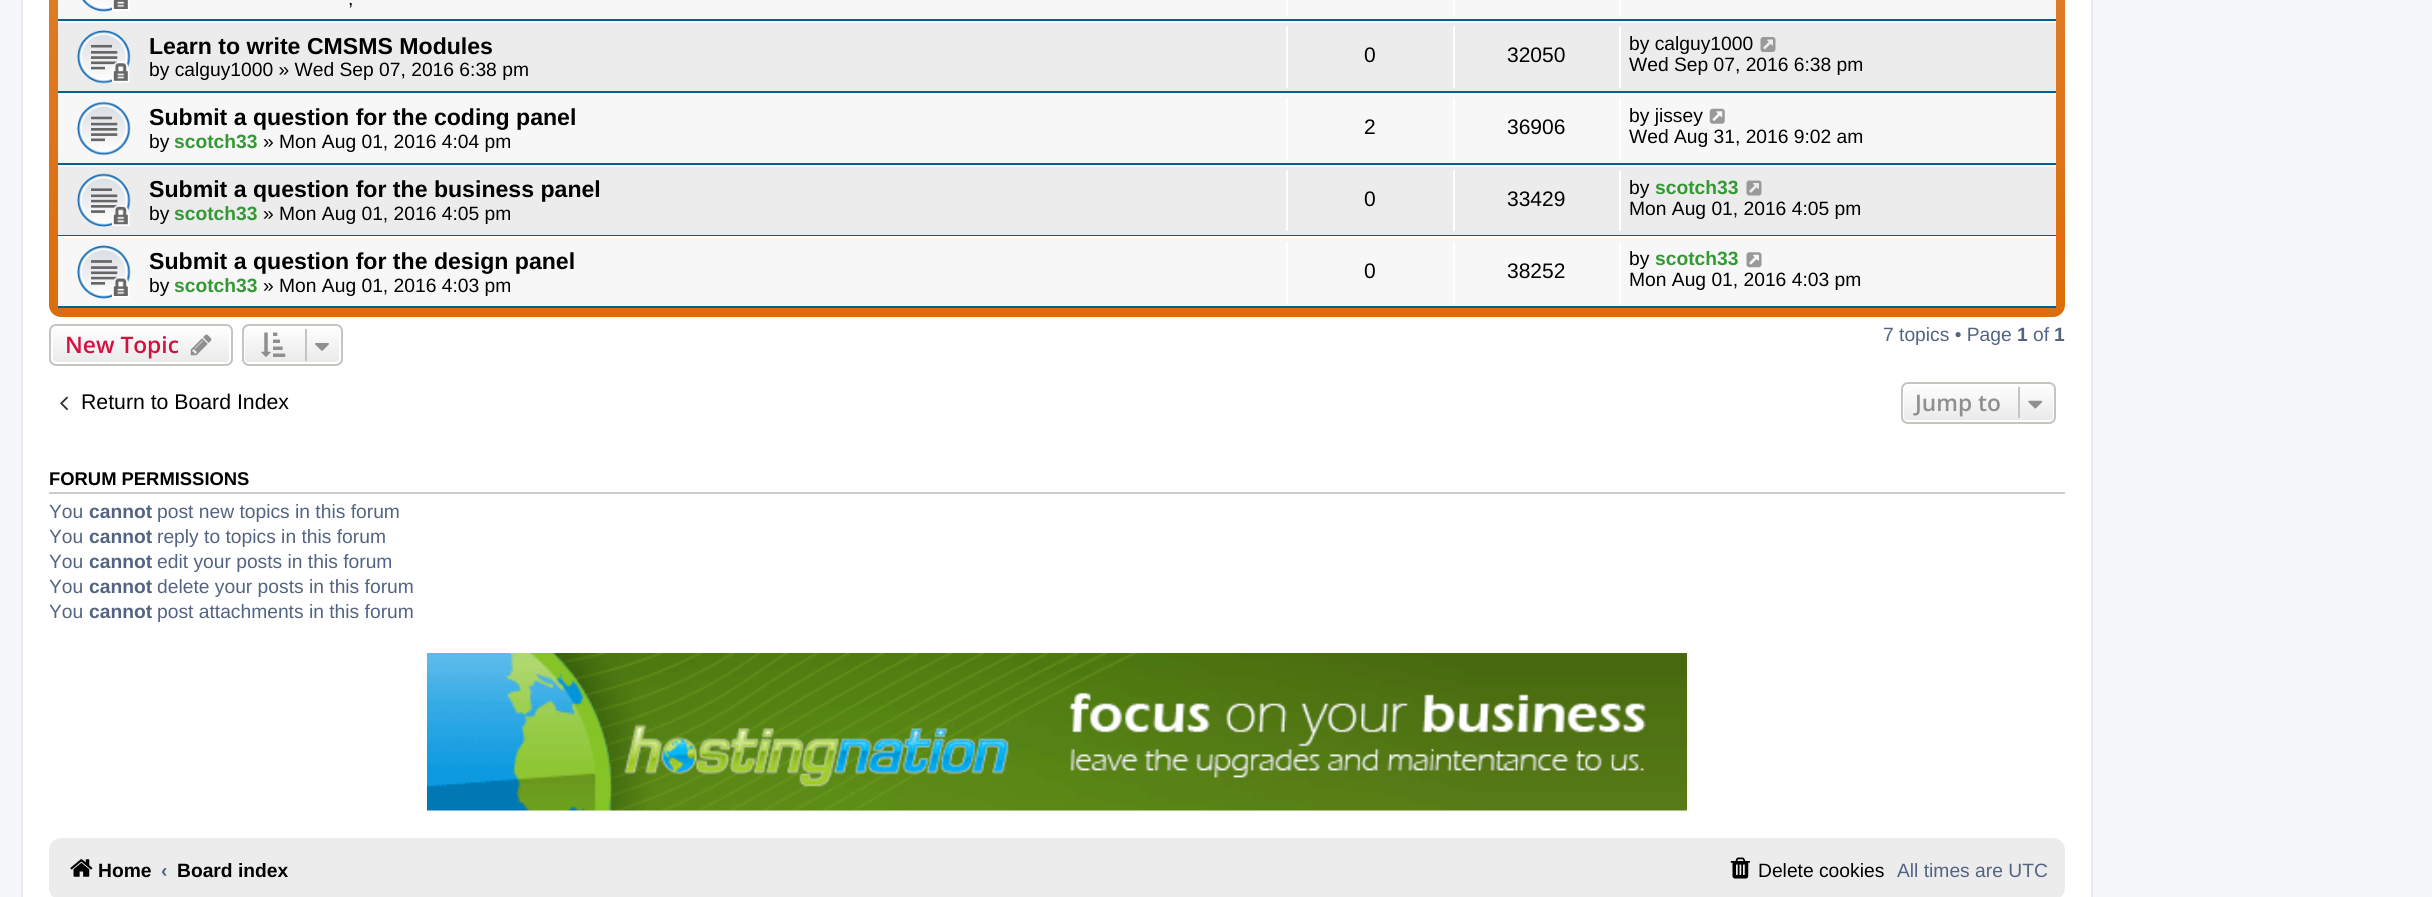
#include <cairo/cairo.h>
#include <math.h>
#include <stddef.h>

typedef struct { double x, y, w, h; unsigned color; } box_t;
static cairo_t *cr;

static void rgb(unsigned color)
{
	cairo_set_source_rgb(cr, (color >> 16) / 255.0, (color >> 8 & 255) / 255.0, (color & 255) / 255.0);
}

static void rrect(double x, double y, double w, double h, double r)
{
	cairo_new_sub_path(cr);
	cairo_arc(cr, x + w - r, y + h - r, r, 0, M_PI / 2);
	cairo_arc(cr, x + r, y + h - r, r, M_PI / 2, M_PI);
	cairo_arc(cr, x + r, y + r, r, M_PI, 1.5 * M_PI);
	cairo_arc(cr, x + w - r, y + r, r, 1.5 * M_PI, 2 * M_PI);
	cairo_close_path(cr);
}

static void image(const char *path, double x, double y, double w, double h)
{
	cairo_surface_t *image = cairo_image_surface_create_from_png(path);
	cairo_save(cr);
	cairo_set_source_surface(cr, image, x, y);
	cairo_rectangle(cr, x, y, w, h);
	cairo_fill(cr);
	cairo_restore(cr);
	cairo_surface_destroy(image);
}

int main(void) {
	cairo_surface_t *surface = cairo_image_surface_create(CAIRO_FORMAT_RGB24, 2432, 897);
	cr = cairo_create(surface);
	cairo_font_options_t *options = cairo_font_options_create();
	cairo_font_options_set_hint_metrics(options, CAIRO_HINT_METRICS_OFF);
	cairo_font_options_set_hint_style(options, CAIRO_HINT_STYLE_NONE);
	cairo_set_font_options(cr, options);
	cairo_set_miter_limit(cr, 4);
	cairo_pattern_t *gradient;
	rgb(0xf5f7fa);
	cairo_paint(cr);
	rgb(0xffffff);
	cairo_rectangle(cr, 22, -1, 2070, 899);
	cairo_fill_preserve(cr);
	rgb(0xe6e9ed);
	cairo_stroke(cr);
	gradient = cairo_pattern_create_linear(1057, -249, 1057, 317);
	cairo_pattern_add_color_stop_rgba(gradient, 0, 0.839, 0.573, 0.333, 1);
	cairo_pattern_add_color_stop_rgba(gradient, 0.01, 0.847, 0.506, 0.204, 1);
	cairo_pattern_add_color_stop_rgba(gradient, 0.28, 0.871, 0.498, 0.169, 1);
	cairo_pattern_add_color_stop_rgba(gradient, 1, 0.867, 0.427, 0.039, 1);
	cairo_set_source(cr, gradient);
	cairo_pattern_destroy(gradient);
	rrect(49, -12, 2016, 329, 12);
	cairo_fill(cr);
	rgb(0xf7f7f7);
	cairo_rectangle(cr, 58, 0, 1998, 19);
	cairo_fill(cr);
	rgb(0x00608f);
	cairo_rectangle(cr, 58, 19, 1998, 2);
	cairo_fill(cr);
	image("img/1.png", 81, 0, 49, 12);
	{
		static const box_t items[] = {
			{1286, 0, 2, 16, 0xffffff},
			{1453, 0, 2, 16, 0xffffff},
			{1619, 0, 2, 16, 0xffffff},
			{58, 23, 1998, 68, 0xececec},
			{58, 21, 1998, 2, 0xffffff},
			{58, 91, 1998, 2, 0x00608f},
		};
		for (size_t i = 0; i < sizeof items / sizeof *items; i++) {
			rgb(items[i].color);
			cairo_rectangle(cr, items[i].x, items[i].y, items[i].w, items[i].h);
			cairo_fill(cr);
		}
	}
	image("img/2.png", 77, 30, 54, 54);
	{
		static const box_t items[] = {
			{1286, 26, 2, 62, 0xffffff},
			{1453, 26, 2, 62, 0xffffff},
			{1619, 26, 2, 62, 0xffffff},
		};
		for (size_t i = 0; i < sizeof items / sizeof *items; i++) {
			rgb(items[i].color);
			cairo_rectangle(cr, items[i].x, items[i].y, items[i].w, items[i].h);
			cairo_fill(cr);
		}
	}
	image("img/3.png", 1760, 37, 16, 15);
	{
		static const box_t items[] = {
			{58, 95, 1998, 68, 0xf7f7f7},
			{58, 93, 1998, 2, 0xffffff},
			{58, 163, 1998, 2, 0x00608f},
		};
		for (size_t i = 0; i < sizeof items / sizeof *items; i++) {
			rgb(items[i].color);
			cairo_rectangle(cr, items[i].x, items[i].y, items[i].w, items[i].h);
			cairo_fill(cr);
		}
	}
	image("img/4.png", 77, 101, 54, 55);
	{
		static const box_t items[] = {
			{1286, 98, 2, 61, 0xffffff},
			{1453, 98, 2, 61, 0xffffff},
			{1619, 98, 2, 61, 0xffffff},
		};
		for (size_t i = 0; i < sizeof items / sizeof *items; i++) {
			rgb(items[i].color);
			cairo_rectangle(cr, items[i].x, items[i].y, items[i].w, items[i].h);
			cairo_fill(cr);
		}
	}
	image("img/5.png", 1709, 108, 16, 16);
	{
		static const box_t items[] = {
			{58, 167, 1998, 68, 0xececec},
			{58, 165, 1998, 2, 0xffffff},
			{58, 235, 1998, 1, 0x00608f},
		};
		for (size_t i = 0; i < sizeof items / sizeof *items; i++) {
			rgb(items[i].color);
			cairo_rectangle(cr, items[i].x, items[i].y, items[i].w, items[i].h);
			cairo_fill(cr);
		}
	}
	image("img/6.png", 77, 173, 54, 54);
	{
		static const box_t items[] = {
			{1286, 170, 2, 61, 0xffffff},
			{1453, 170, 2, 61, 0xffffff},
			{1619, 170, 2, 61, 0xffffff},
		};
		for (size_t i = 0; i < sizeof items / sizeof *items; i++) {
			rgb(items[i].color);
			cairo_rectangle(cr, items[i].x, items[i].y, items[i].w, items[i].h);
			cairo_fill(cr);
		}
	}
	image("img/7.png", 1746, 180, 16, 16);
	{
		static const box_t items[] = {
			{58, 238, 1998, 68, 0xf7f7f7},
			{58, 236, 1998, 2, 0xffffff},
			{58, 306, 1998, 2, 0x00608f},
		};
		for (size_t i = 0; i < sizeof items / sizeof *items; i++) {
			rgb(items[i].color);
			cairo_rectangle(cr, items[i].x, items[i].y, items[i].w, items[i].h);
			cairo_fill(cr);
		}
	}
	image("img/8.png", 77, 245, 54, 54);
	{
		static const box_t items[] = {
			{1286, 242, 2, 61, 0xffffff},
			{1453, 242, 2, 61, 0xffffff},
			{1619, 242, 2, 61, 0xffffff},
		};
		for (size_t i = 0; i < sizeof items / sizeof *items; i++) {
			rgb(items[i].color);
			cairo_rectangle(cr, items[i].x, items[i].y, items[i].w, items[i].h);
			cairo_fill(cr);
		}
	}
	image("img/9.png", 1746, 252, 16, 16);
	cairo_save(cr);
	rrect(49, 324, 184, 42, 7);
	cairo_clip(cr);
	gradient = cairo_pattern_create_linear(141, 326, 141, 364);
	cairo_pattern_add_color_stop_rgba(gradient, 0, 1, 1, 1, 1);
	cairo_pattern_add_color_stop_rgba(gradient, 1, 0.914, 0.914, 0.914, 1);
	cairo_set_source(cr, gradient);
	cairo_pattern_destroy(gradient);
	cairo_rectangle(cr, 49, 326, 184, 38);
	cairo_fill(cr);
	cairo_restore(cr);
	rrect(52, 327, 178, 36, 4);
	cairo_stroke(cr);
	rrect(50, 325, 182, 40, 6);
	rgb(0xc7c3bf);
	cairo_stroke(cr);
	image("img/10.png", 190, 334, 22, 22);
	cairo_save(cr);
	rrect(242, 324, 101, 42, 7);
	cairo_clip(cr);
	gradient = cairo_pattern_create_linear(292, 326, 292, 364);
	cairo_pattern_add_color_stop_rgba(gradient, 0, 1, 1, 1, 1);
	cairo_pattern_add_color_stop_rgba(gradient, 1, 0.914, 0.914, 0.914, 1);
	cairo_set_source(cr, gradient);
	cairo_pattern_destroy(gradient);
	cairo_rectangle(cr, 242, 326, 101, 38);
	cairo_fill(cr);
	cairo_restore(cr);
	rrect(244, 327, 96, 36, 4);
	rgb(0xffffff);
	cairo_stroke(cr);
	rrect(243, 325, 99, 40, 6);
	rgb(0xc7c3bf);
	cairo_stroke(cr);
	image("img/11.png", 261, 332, 25, 25);
	cairo_rectangle(cr, 305, 329, 2, 32);
	cairo_fill(cr);
	image("img/12.png", 315, 343, 14, 8);
	image("img/13.png", 60, 396, 8, 15);
	cairo_save(cr);
	rrect(1901, 382, 155, 42, 7);
	cairo_clip(cr);
	gradient = cairo_pattern_create_linear(1978, 383, 1978, 422);
	cairo_pattern_add_color_stop_rgba(gradient, 0, 1, 1, 1, 1);
	cairo_pattern_add_color_stop_rgba(gradient, 1, 0.914, 0.914, 0.914, 1);
	cairo_set_source(cr, gradient);
	cairo_pattern_destroy(gradient);
	cairo_rectangle(cr, 1901, 383, 155, 39);
	cairo_fill(cr);
	cairo_restore(cr);
	rrect(1903, 384, 151, 37, 4);
	rgb(0xffffff);
	cairo_stroke(cr);
	rrect(1902, 383, 153, 40, 6);
	rgb(0xc7c3bf);
	cairo_stroke(cr);
	cairo_rectangle(cr, 2018, 387, 2, 31);
	cairo_fill(cr);
	image("img/14.png", 2028, 400, 15, 9);
	rgb(0xcccccc);
	cairo_rectangle(cr, 49, 492, 2016, 2);
	cairo_fill(cr);
	image("img/15.png", 427, 653, 1260, 158);
	rgb(0xececec);
	rrect(49, 838, 2016, 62, 12);
	cairo_fill(cr);
	image("img/16.png", 70, 859, 23, 18);
	image("img/17.png", 1730, 857, 20, 22);
	cairo_select_font_face(cr, "Liberation Sans", CAIRO_FONT_SLANT_NORMAL, CAIRO_FONT_WEIGHT_NORMAL);
	cairo_set_font_size(cr, 19.25);
	rgb(0x000000);
	cairo_move_to(cr, 348, 5);
	cairo_show_text(cr, ",");
	cairo_select_font_face(cr, "Liberation Sans", CAIRO_FONT_SLANT_NORMAL, CAIRO_FONT_WEIGHT_BOLD);
	cairo_set_font_size(cr, 23.1);
	cairo_move_to(cr, 149, 54);
	cairo_show_text(cr, "Learn to write CMSMS Modules");
	cairo_select_font_face(cr, "Liberation Sans", CAIRO_FONT_SLANT_NORMAL, CAIRO_FONT_WEIGHT_NORMAL);
	cairo_set_font_size(cr, 19.25);
	cairo_move_to(cr, 149, 76);
	cairo_show_text(cr, "by calguy1000 » Wed Sep 07, 2016 6:38 pm");
	cairo_set_font_size(cr, 21);
	cairo_move_to(cr, 1364, 62);
	cairo_show_text(cr, "0");
	cairo_move_to(cr, 1507, 62);
	cairo_show_text(cr, "32050");
	cairo_set_font_size(cr, 19.25);
	cairo_move_to(cr, 1629, 50);
	cairo_show_text(cr, "by calguy1000");
	cairo_move_to(cr, 1629, 71);
	cairo_show_text(cr, "Wed Sep 07, 2016 6:38 pm");
	cairo_select_font_face(cr, "Liberation Sans", CAIRO_FONT_SLANT_NORMAL, CAIRO_FONT_WEIGHT_BOLD);
	cairo_set_font_size(cr, 23.1);
	cairo_move_to(cr, 149, 125);
	cairo_show_text(cr, "Submit a question for the coding panel");
	cairo_select_font_face(cr, "Liberation Sans", CAIRO_FONT_SLANT_NORMAL, CAIRO_FONT_WEIGHT_NORMAL);
	cairo_set_font_size(cr, 19.25);
	cairo_move_to(cr, 149, 148);
	cairo_show_text(cr, "by");
	cairo_select_font_face(cr, "Liberation Sans", CAIRO_FONT_SLANT_NORMAL, CAIRO_FONT_WEIGHT_BOLD);
	rgb(0x339933);
	cairo_move_to(cr, 174, 148);
	cairo_show_text(cr, "scotch33");
	cairo_select_font_face(cr, "Liberation Sans", CAIRO_FONT_SLANT_NORMAL, CAIRO_FONT_WEIGHT_NORMAL);
	rgb(0x000000);
	cairo_move_to(cr, 263, 148);
	cairo_show_text(cr, "» Mon Aug 01, 2016 4:04 pm");
	cairo_set_font_size(cr, 21);
	cairo_move_to(cr, 1364, 134);
	cairo_show_text(cr, "2");
	cairo_move_to(cr, 1507, 134);
	cairo_show_text(cr, "36906");
	cairo_set_font_size(cr, 19.25);
	cairo_move_to(cr, 1629, 122);
	cairo_show_text(cr, "by jissey");
	cairo_move_to(cr, 1629, 143);
	cairo_show_text(cr, "Wed Aug 31, 2016 9:02 am");
	cairo_select_font_face(cr, "Liberation Sans", CAIRO_FONT_SLANT_NORMAL, CAIRO_FONT_WEIGHT_BOLD);
	cairo_set_font_size(cr, 23.1);
	cairo_move_to(cr, 149, 197);
	cairo_show_text(cr, "Submit a question for the business panel");
	cairo_select_font_face(cr, "Liberation Sans", CAIRO_FONT_SLANT_NORMAL, CAIRO_FONT_WEIGHT_NORMAL);
	cairo_set_font_size(cr, 19.25);
	cairo_move_to(cr, 149, 220);
	cairo_show_text(cr, "by");
	cairo_select_font_face(cr, "Liberation Sans", CAIRO_FONT_SLANT_NORMAL, CAIRO_FONT_WEIGHT_BOLD);
	rgb(0x339933);
	cairo_move_to(cr, 174, 220);
	cairo_show_text(cr, "scotch33");
	cairo_select_font_face(cr, "Liberation Sans", CAIRO_FONT_SLANT_NORMAL, CAIRO_FONT_WEIGHT_NORMAL);
	rgb(0x000000);
	cairo_move_to(cr, 263, 220);
	cairo_show_text(cr, "» Mon Aug 01, 2016 4:05 pm");
	cairo_set_font_size(cr, 21);
	cairo_move_to(cr, 1364, 206);
	cairo_show_text(cr, "0");
	cairo_move_to(cr, 1507, 206);
	cairo_show_text(cr, "33429");
	cairo_set_font_size(cr, 19.25);
	cairo_move_to(cr, 1629, 194);
	cairo_show_text(cr, "by");
	cairo_select_font_face(cr, "Liberation Sans", CAIRO_FONT_SLANT_NORMAL, CAIRO_FONT_WEIGHT_BOLD);
	rgb(0x339933);
	cairo_move_to(cr, 1655, 194);
	cairo_show_text(cr, "scotch33");
	cairo_select_font_face(cr, "Liberation Sans", CAIRO_FONT_SLANT_NORMAL, CAIRO_FONT_WEIGHT_NORMAL);
	rgb(0x000000);
	cairo_move_to(cr, 1629, 215);
	cairo_show_text(cr, "Mon Aug 01, 2016 4:05 pm");
	cairo_select_font_face(cr, "Liberation Sans", CAIRO_FONT_SLANT_NORMAL, CAIRO_FONT_WEIGHT_BOLD);
	cairo_set_font_size(cr, 23.1);
	cairo_move_to(cr, 149, 269);
	cairo_show_text(cr, "Submit a question for the design panel");
	cairo_select_font_face(cr, "Liberation Sans", CAIRO_FONT_SLANT_NORMAL, CAIRO_FONT_WEIGHT_NORMAL);
	cairo_set_font_size(cr, 19.25);
	cairo_move_to(cr, 149, 292);
	cairo_show_text(cr, "by");
	cairo_select_font_face(cr, "Liberation Sans", CAIRO_FONT_SLANT_NORMAL, CAIRO_FONT_WEIGHT_BOLD);
	rgb(0x339933);
	cairo_move_to(cr, 174, 292);
	cairo_show_text(cr, "scotch33");
	cairo_select_font_face(cr, "Liberation Sans", CAIRO_FONT_SLANT_NORMAL, CAIRO_FONT_WEIGHT_NORMAL);
	rgb(0x000000);
	cairo_move_to(cr, 263, 292);
	cairo_show_text(cr, "» Mon Aug 01, 2016 4:03 pm");
	cairo_set_font_size(cr, 21);
	cairo_move_to(cr, 1364, 278);
	cairo_show_text(cr, "0");
	cairo_move_to(cr, 1507, 278);
	cairo_show_text(cr, "38252");
	cairo_set_font_size(cr, 19.25);
	cairo_move_to(cr, 1629, 265);
	cairo_show_text(cr, "by");
	cairo_select_font_face(cr, "Liberation Sans", CAIRO_FONT_SLANT_NORMAL, CAIRO_FONT_WEIGHT_BOLD);
	rgb(0x339933);
	cairo_move_to(cr, 1655, 265);
	cairo_show_text(cr, "scotch33");
	cairo_select_font_face(cr, "Liberation Sans", CAIRO_FONT_SLANT_NORMAL, CAIRO_FONT_WEIGHT_NORMAL);
	rgb(0x000000);
	cairo_move_to(cr, 1629, 286);
	cairo_show_text(cr, "Mon Aug 01, 2016 4:03 pm");
	cairo_select_font_face(cr, "Open Sans SemiBold", CAIRO_FONT_SLANT_NORMAL, CAIRO_FONT_WEIGHT_NORMAL);
	cairo_set_font_size(cr, 22.75);
	rgb(0xd31141);
	cairo_move_to(cr, 65, 353);
	cairo_show_text(cr, "New Topic");
	cairo_select_font_face(cr, "Liberation Sans", CAIRO_FONT_SLANT_NORMAL, CAIRO_FONT_WEIGHT_NORMAL);
	cairo_set_font_size(cr, 19.25);
	rgb(0x536482);
	cairo_move_to(cr, 1883, 341);
	cairo_show_text(cr, "7 topics • Page");
	cairo_select_font_face(cr, "Liberation Sans", CAIRO_FONT_SLANT_NORMAL, CAIRO_FONT_WEIGHT_BOLD);
	cairo_move_to(cr, 2017, 341);
	cairo_show_text(cr, "1");
	cairo_select_font_face(cr, "Liberation Sans", CAIRO_FONT_SLANT_NORMAL, CAIRO_FONT_WEIGHT_NORMAL);
	cairo_move_to(cr, 2033, 341);
	cairo_show_text(cr, "of");
	cairo_select_font_face(cr, "Liberation Sans", CAIRO_FONT_SLANT_NORMAL, CAIRO_FONT_WEIGHT_BOLD);
	cairo_move_to(cr, 2054, 341);
	cairo_show_text(cr, "1");
	cairo_select_font_face(cr, "Liberation Sans", CAIRO_FONT_SLANT_NORMAL, CAIRO_FONT_WEIGHT_NORMAL);
	cairo_set_font_size(cr, 21.25);
	rgb(0x000000);
	cairo_move_to(cr, 81, 409);
	cairo_show_text(cr, "Return to Board Index");
	cairo_select_font_face(cr, "Open Sans SemiBold", CAIRO_FONT_SLANT_NORMAL, CAIRO_FONT_WEIGHT_NORMAL);
	cairo_set_font_size(cr, 22.75);
	rgb(0x8f8f8f);
	cairo_move_to(cr, 1915, 411);
	cairo_show_text(cr, "Jump to");
	cairo_select_font_face(cr, "Liberation Sans", CAIRO_FONT_SLANT_NORMAL, CAIRO_FONT_WEIGHT_BOLD);
	cairo_set_font_size(cr, 18.4);
	rgb(0x000000);
	cairo_move_to(cr, 49, 485);
	cairo_show_text(cr, "FORUM PERMISSIONS");
	cairo_select_font_face(cr, "Liberation Sans", CAIRO_FONT_SLANT_NORMAL, CAIRO_FONT_WEIGHT_NORMAL);
	cairo_set_font_size(cr, 19.25);
	rgb(0x536482);
	cairo_move_to(cr, 49, 518);
	cairo_show_text(cr, "You");
	cairo_select_font_face(cr, "Liberation Sans", CAIRO_FONT_SLANT_NORMAL, CAIRO_FONT_WEIGHT_BOLD);
	cairo_move_to(cr, 89, 518);
	cairo_show_text(cr, "cannot");
	cairo_select_font_face(cr, "Liberation Sans", CAIRO_FONT_SLANT_NORMAL, CAIRO_FONT_WEIGHT_NORMAL);
	cairo_move_to(cr, 157, 518);
	cairo_show_text(cr, "post new topics in this forum");
	cairo_move_to(cr, 49, 543);
	cairo_show_text(cr, "You");
	cairo_select_font_face(cr, "Liberation Sans", CAIRO_FONT_SLANT_NORMAL, CAIRO_FONT_WEIGHT_BOLD);
	cairo_move_to(cr, 89, 543);
	cairo_show_text(cr, "cannot");
	cairo_select_font_face(cr, "Liberation Sans", CAIRO_FONT_SLANT_NORMAL, CAIRO_FONT_WEIGHT_NORMAL);
	cairo_move_to(cr, 157, 543);
	cairo_show_text(cr, "reply to topics in this forum");
	cairo_move_to(cr, 49, 568);
	cairo_show_text(cr, "You");
	cairo_select_font_face(cr, "Liberation Sans", CAIRO_FONT_SLANT_NORMAL, CAIRO_FONT_WEIGHT_BOLD);
	cairo_move_to(cr, 89, 568);
	cairo_show_text(cr, "cannot");
	cairo_select_font_face(cr, "Liberation Sans", CAIRO_FONT_SLANT_NORMAL, CAIRO_FONT_WEIGHT_NORMAL);
	cairo_move_to(cr, 157, 568);
	cairo_show_text(cr, "edit your posts in this forum");
	cairo_move_to(cr, 49, 593);
	cairo_show_text(cr, "You");
	cairo_select_font_face(cr, "Liberation Sans", CAIRO_FONT_SLANT_NORMAL, CAIRO_FONT_WEIGHT_BOLD);
	cairo_move_to(cr, 89, 593);
	cairo_show_text(cr, "cannot");
	cairo_select_font_face(cr, "Liberation Sans", CAIRO_FONT_SLANT_NORMAL, CAIRO_FONT_WEIGHT_NORMAL);
	cairo_move_to(cr, 157, 593);
	cairo_show_text(cr, "delete your posts in this forum");
	cairo_move_to(cr, 49, 618);
	cairo_show_text(cr, "You");
	cairo_select_font_face(cr, "Liberation Sans", CAIRO_FONT_SLANT_NORMAL, CAIRO_FONT_WEIGHT_BOLD);
	cairo_move_to(cr, 89, 618);
	cairo_show_text(cr, "cannot");
	cairo_select_font_face(cr, "Liberation Sans", CAIRO_FONT_SLANT_NORMAL, CAIRO_FONT_WEIGHT_NORMAL);
	cairo_move_to(cr, 157, 618);
	cairo_show_text(cr, "post attachments in this forum");
	cairo_select_font_face(cr, "Liberation Sans", CAIRO_FONT_SLANT_NORMAL, CAIRO_FONT_WEIGHT_BOLD);
	rgb(0x000000);
	cairo_move_to(cr, 98, 877);
	cairo_show_text(cr, "Home");
	rgb(0x536482);
	cairo_move_to(cr, 161, 877);
	cairo_show_text(cr, "‹");
	rgb(0x000000);
	cairo_move_to(cr, 177, 877);
	cairo_show_text(cr, "Board index");
	cairo_select_font_face(cr, "Liberation Sans", CAIRO_FONT_SLANT_NORMAL, CAIRO_FONT_WEIGHT_NORMAL);
	cairo_move_to(cr, 1758, 877);
	cairo_show_text(cr, "Delete cookies");
	rgb(0x536482);
	cairo_move_to(cr, 1897, 877);
	cairo_show_text(cr, "All times are UTC");
	cairo_surface_write_to_png(surface, "page.png");
	cairo_font_options_destroy(options);
	cairo_destroy(cr);
	cairo_surface_destroy(surface);
	return 0;
}
